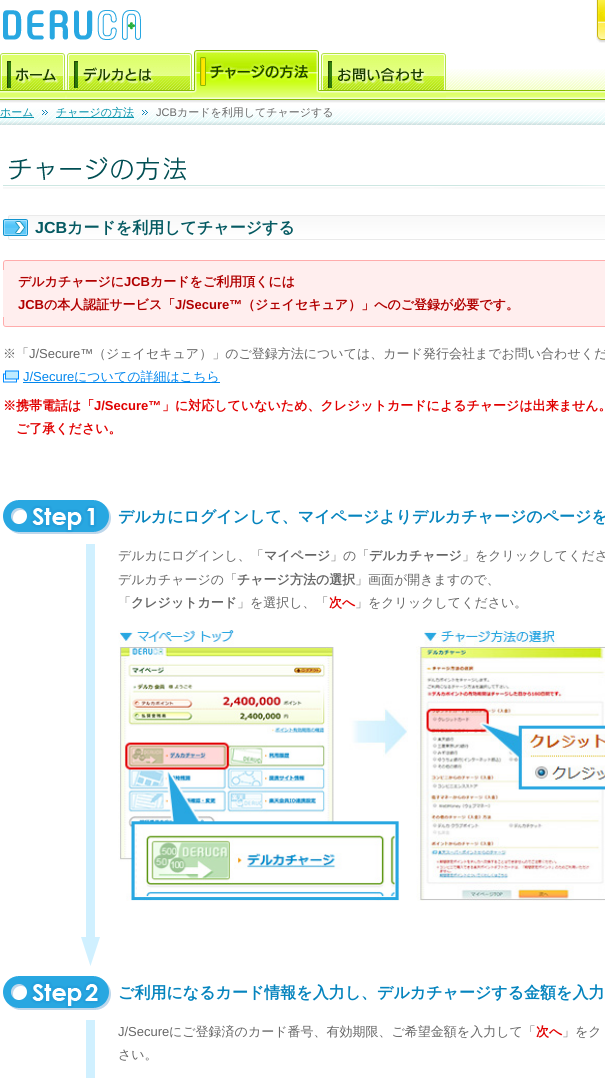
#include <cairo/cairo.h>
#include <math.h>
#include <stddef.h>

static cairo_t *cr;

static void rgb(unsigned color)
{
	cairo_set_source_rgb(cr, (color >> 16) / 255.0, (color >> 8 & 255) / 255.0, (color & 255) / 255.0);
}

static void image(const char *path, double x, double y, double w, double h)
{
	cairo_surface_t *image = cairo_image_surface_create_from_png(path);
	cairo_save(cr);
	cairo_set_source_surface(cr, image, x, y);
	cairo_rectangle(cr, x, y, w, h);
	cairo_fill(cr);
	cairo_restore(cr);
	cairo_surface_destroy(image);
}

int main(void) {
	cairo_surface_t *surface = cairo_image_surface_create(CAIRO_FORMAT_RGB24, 605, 1078);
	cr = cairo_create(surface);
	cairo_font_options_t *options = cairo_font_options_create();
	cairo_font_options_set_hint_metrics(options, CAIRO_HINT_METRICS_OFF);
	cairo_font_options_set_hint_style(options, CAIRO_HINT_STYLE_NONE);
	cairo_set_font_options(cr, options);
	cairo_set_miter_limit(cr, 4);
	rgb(0xffffff);
	cairo_paint(cr);
	image("img/1.png", 0, 69, 605, 56);
	image("img/2.png", 3, 10, 138, 30);
	image("img/3.png", 596, 0, 9, 43);
	image("img/4.png", 0, 53, 65, 46);
	image("img/5.png", 67, 53, 125, 46);
	image("img/6.png", 194, 50, 125, 43);
	image("img/7.png", 321, 53, 125, 46);
	rgb(0x0592ab);
	cairo_rectangle(cr, 0, 117, 34, 1);
	cairo_fill(cr);
	image("img/8.png", 42, 110, 6, 5);
	cairo_rectangle(cr, 56, 117, 78, 1);
	cairo_fill(cr);
	image("img/8.png", 142, 110, 6, 5);
	image("img/9.png", 3, 157, 602, 32);
	image("img/10.png", 3, 215, 602, 25);
	rgb(0xffeeee);
	cairo_rectangle(cr, 3, 270, 602, 47);
	cairo_fill(cr);
	image("img/11.png", 3, 260, 602, 10);
	image("img/12.png", 3, 317, 602, 10);
	image("img/13.png", 3, 370, 16, 13);
	rgb(0x0086ed);
	cairo_rectangle(cr, 23, 382, 197, 1);
	cairo_fill(cr);
	image("img/14.png", 3, 500, 108, 34);
	rgb(0xd0f0ff);
	cairo_rectangle(cr, 86, 544, 9, 357);
	cairo_fill(cr);
	image("img/15.png", 118, 630, 487, 271);
	image("img/16.png", 81, 901, 19, 65);
	image("img/17.png", 3, 976, 108, 34);
	cairo_rectangle(cr, 86, 1020, 9, 58);
	cairo_fill(cr);
	cairo_select_font_face(cr, "WenQuanYi Zen Hei Medium", CAIRO_FONT_SLANT_NORMAL, CAIRO_FONT_WEIGHT_NORMAL);
	cairo_set_font_size(cr, 11);
	rgb(0x0592ab);
	cairo_move_to(cr, 0, 116);
	cairo_show_text(cr, "ホーム");
	cairo_move_to(cr, 56, 116);
	cairo_show_text(cr, "チャージの方法");
	cairo_select_font_face(cr, "Liberation Sans", CAIRO_FONT_SLANT_NORMAL, CAIRO_FONT_WEIGHT_NORMAL);
	rgb(0x666666);
	cairo_move_to(cr, 156, 116);
	cairo_show_text(cr, "JCB");
	cairo_select_font_face(cr, "WenQuanYi Zen Hei Medium", CAIRO_FONT_SLANT_NORMAL, CAIRO_FONT_WEIGHT_NORMAL);
	cairo_move_to(cr, 177, 116);
	cairo_show_text(cr, "カードを利用してチャージする");
	cairo_select_font_face(cr, "Liberation Sans", CAIRO_FONT_SLANT_NORMAL, CAIRO_FONT_WEIGHT_BOLD);
	cairo_set_font_size(cr, 16);
	rgb(0x055a62);
	cairo_move_to(cr, 35, 233);
	cairo_show_text(cr, "JCB");
	cairo_select_font_face(cr, "WenQuanYi Zen Hei", CAIRO_FONT_SLANT_NORMAL, CAIRO_FONT_WEIGHT_BOLD);
	cairo_move_to(cr, 67, 233);
	cairo_show_text(cr, "カードを利用してチャージする");
	cairo_set_font_size(cr, 13);
	rgb(0xb10000);
	cairo_move_to(cr, 18, 286);
	cairo_show_text(cr, "デルカチャージに");
	cairo_select_font_face(cr, "Liberation Sans", CAIRO_FONT_SLANT_NORMAL, CAIRO_FONT_WEIGHT_BOLD);
	cairo_move_to(cr, 124, 286);
	cairo_show_text(cr, "JCB");
	cairo_select_font_face(cr, "WenQuanYi Zen Hei", CAIRO_FONT_SLANT_NORMAL, CAIRO_FONT_WEIGHT_BOLD);
	cairo_move_to(cr, 150, 286);
	cairo_show_text(cr, "カードをご利用頂くには");
	cairo_select_font_face(cr, "Liberation Sans", CAIRO_FONT_SLANT_NORMAL, CAIRO_FONT_WEIGHT_BOLD);
	cairo_move_to(cr, 18, 309);
	cairo_show_text(cr, "JCB");
	cairo_select_font_face(cr, "WenQuanYi Zen Hei", CAIRO_FONT_SLANT_NORMAL, CAIRO_FONT_WEIGHT_BOLD);
	cairo_move_to(cr, 44, 309);
	cairo_show_text(cr, "の本人認証サービス「");
	cairo_select_font_face(cr, "Liberation Sans", CAIRO_FONT_SLANT_NORMAL, CAIRO_FONT_WEIGHT_BOLD);
	cairo_move_to(cr, 175, 309);
	cairo_show_text(cr, "J/Secure™");
	cairo_select_font_face(cr, "WenQuanYi Zen Hei", CAIRO_FONT_SLANT_NORMAL, CAIRO_FONT_WEIGHT_BOLD);
	cairo_move_to(cr, 242, 309);
	cairo_show_text(cr, "（ジェイセキュア）」へのご登録が必要です。");
	cairo_select_font_face(cr, "WenQuanYi Zen Hei Medium", CAIRO_FONT_SLANT_NORMAL, CAIRO_FONT_WEIGHT_NORMAL);
	rgb(0x666666);
	cairo_move_to(cr, 3, 358);
	cairo_show_text(cr, "※「");
	cairo_select_font_face(cr, "Liberation Sans", CAIRO_FONT_SLANT_NORMAL, CAIRO_FONT_WEIGHT_NORMAL);
	cairo_move_to(cr, 29, 358);
	cairo_show_text(cr, "J/Secure™");
	cairo_select_font_face(cr, "WenQuanYi Zen Hei Medium", CAIRO_FONT_SLANT_NORMAL, CAIRO_FONT_WEIGHT_NORMAL);
	cairo_move_to(cr, 93, 358);
	cairo_show_text(cr, "（ジェイセキュア）」のご登録方法については、カード発行会社までお問い合わせくだ");
	cairo_select_font_face(cr, "Liberation Sans", CAIRO_FONT_SLANT_NORMAL, CAIRO_FONT_WEIGHT_NORMAL);
	rgb(0x0086ed);
	cairo_move_to(cr, 23, 381);
	cairo_show_text(cr, "J/Secure");
	cairo_select_font_face(cr, "WenQuanYi Zen Hei Medium", CAIRO_FONT_SLANT_NORMAL, CAIRO_FONT_WEIGHT_NORMAL);
	cairo_move_to(cr, 74, 381);
	cairo_show_text(cr, "についての詳細はこちら");
	cairo_select_font_face(cr, "WenQuanYi Zen Hei", CAIRO_FONT_SLANT_NORMAL, CAIRO_FONT_WEIGHT_BOLD);
	rgb(0xe10000);
	cairo_move_to(cr, 3, 410);
	cairo_show_text(cr, "※携帯電話は「");
	cairo_select_font_face(cr, "Liberation Sans", CAIRO_FONT_SLANT_NORMAL, CAIRO_FONT_WEIGHT_BOLD);
	cairo_move_to(cr, 94, 410);
	cairo_show_text(cr, "J/Secure™");
	cairo_select_font_face(cr, "WenQuanYi Zen Hei", CAIRO_FONT_SLANT_NORMAL, CAIRO_FONT_WEIGHT_BOLD);
	cairo_move_to(cr, 162, 410);
	cairo_show_text(cr, "」に対応していないため、クレジットカードによるチャージは出来ません。");
	cairo_move_to(cr, 16, 433);
	cairo_show_text(cr, "ご了承ください。");
	cairo_set_font_size(cr, 16);
	rgb(0x0584be);
	cairo_move_to(cr, 118, 522);
	cairo_show_text(cr, "デルカにログインして、マイページよりデルカチャージのページを");
	cairo_select_font_face(cr, "WenQuanYi Zen Hei Medium", CAIRO_FONT_SLANT_NORMAL, CAIRO_FONT_WEIGHT_NORMAL);
	cairo_set_font_size(cr, 13);
	rgb(0x666666);
	cairo_move_to(cr, 118, 560);
	cairo_show_text(cr, "デルカにログインし、「");
	cairo_select_font_face(cr, "WenQuanYi Zen Hei", CAIRO_FONT_SLANT_NORMAL, CAIRO_FONT_WEIGHT_BOLD);
	cairo_move_to(cr, 264, 560);
	cairo_show_text(cr, "マイページ");
	cairo_select_font_face(cr, "WenQuanYi Zen Hei Medium", CAIRO_FONT_SLANT_NORMAL, CAIRO_FONT_WEIGHT_NORMAL);
	cairo_move_to(cr, 330, 560);
	cairo_show_text(cr, "」の「");
	cairo_select_font_face(cr, "WenQuanYi Zen Hei", CAIRO_FONT_SLANT_NORMAL, CAIRO_FONT_WEIGHT_BOLD);
	cairo_move_to(cr, 369, 560);
	cairo_show_text(cr, "デルカチャージ");
	cairo_select_font_face(cr, "WenQuanYi Zen Hei Medium", CAIRO_FONT_SLANT_NORMAL, CAIRO_FONT_WEIGHT_NORMAL);
	cairo_move_to(cr, 462, 560);
	cairo_show_text(cr, "」をクリックしてくださ");
	cairo_move_to(cr, 118, 584);
	cairo_show_text(cr, "デルカチャージの「");
	cairo_select_font_face(cr, "WenQuanYi Zen Hei", CAIRO_FONT_SLANT_NORMAL, CAIRO_FONT_WEIGHT_BOLD);
	cairo_move_to(cr, 237, 584);
	cairo_show_text(cr, "チャージ方法の選択");
	cairo_select_font_face(cr, "WenQuanYi Zen Hei Medium", CAIRO_FONT_SLANT_NORMAL, CAIRO_FONT_WEIGHT_NORMAL);
	cairo_move_to(cr, 355, 584);
	cairo_show_text(cr, "」画面が開きますので、");
	cairo_move_to(cr, 118, 607);
	cairo_show_text(cr, "「");
	cairo_select_font_face(cr, "WenQuanYi Zen Hei", CAIRO_FONT_SLANT_NORMAL, CAIRO_FONT_WEIGHT_BOLD);
	cairo_move_to(cr, 131, 607);
	cairo_show_text(cr, "クレジットカード");
	cairo_select_font_face(cr, "WenQuanYi Zen Hei Medium", CAIRO_FONT_SLANT_NORMAL, CAIRO_FONT_WEIGHT_NORMAL);
	cairo_move_to(cr, 237, 607);
	cairo_show_text(cr, "」を選択し、「");
	cairo_select_font_face(cr, "WenQuanYi Zen Hei", CAIRO_FONT_SLANT_NORMAL, CAIRO_FONT_WEIGHT_BOLD);
	rgb(0xe10000);
	cairo_move_to(cr, 329, 607);
	cairo_show_text(cr, "次へ");
	cairo_select_font_face(cr, "WenQuanYi Zen Hei Medium", CAIRO_FONT_SLANT_NORMAL, CAIRO_FONT_WEIGHT_NORMAL);
	rgb(0x666666);
	cairo_move_to(cr, 355, 607);
	cairo_show_text(cr, "」をクリックしてください。");
	cairo_select_font_face(cr, "WenQuanYi Zen Hei", CAIRO_FONT_SLANT_NORMAL, CAIRO_FONT_WEIGHT_BOLD);
	cairo_set_font_size(cr, 16);
	rgb(0x0584be);
	cairo_move_to(cr, 118, 998);
	cairo_show_text(cr, "ご利用になるカード情報を入力し、デルカチャージする金額を入力");
	cairo_select_font_face(cr, "Liberation Sans", CAIRO_FONT_SLANT_NORMAL, CAIRO_FONT_WEIGHT_NORMAL);
	cairo_set_font_size(cr, 13);
	rgb(0x666666);
	cairo_move_to(cr, 118, 1036);
	cairo_show_text(cr, "J/Secure");
	cairo_select_font_face(cr, "WenQuanYi Zen Hei Medium", CAIRO_FONT_SLANT_NORMAL, CAIRO_FONT_WEIGHT_NORMAL);
	cairo_move_to(cr, 169, 1036);
	cairo_show_text(cr, "にご登録済のカード番号、有効期限、ご希望金額を入力して「");
	cairo_select_font_face(cr, "WenQuanYi Zen Hei", CAIRO_FONT_SLANT_NORMAL, CAIRO_FONT_WEIGHT_BOLD);
	rgb(0xe10000);
	cairo_move_to(cr, 536, 1036);
	cairo_show_text(cr, "次へ");
	cairo_select_font_face(cr, "WenQuanYi Zen Hei Medium", CAIRO_FONT_SLANT_NORMAL, CAIRO_FONT_WEIGHT_NORMAL);
	rgb(0x666666);
	cairo_move_to(cr, 562, 1036);
	cairo_show_text(cr, "」をク");
	cairo_move_to(cr, 118, 1059);
	cairo_show_text(cr, "さい。");
	cairo_surface_write_to_png(surface, "page.png");
	cairo_font_options_destroy(options);
	cairo_destroy(cr);
	cairo_surface_destroy(surface);
	return 0;
}
